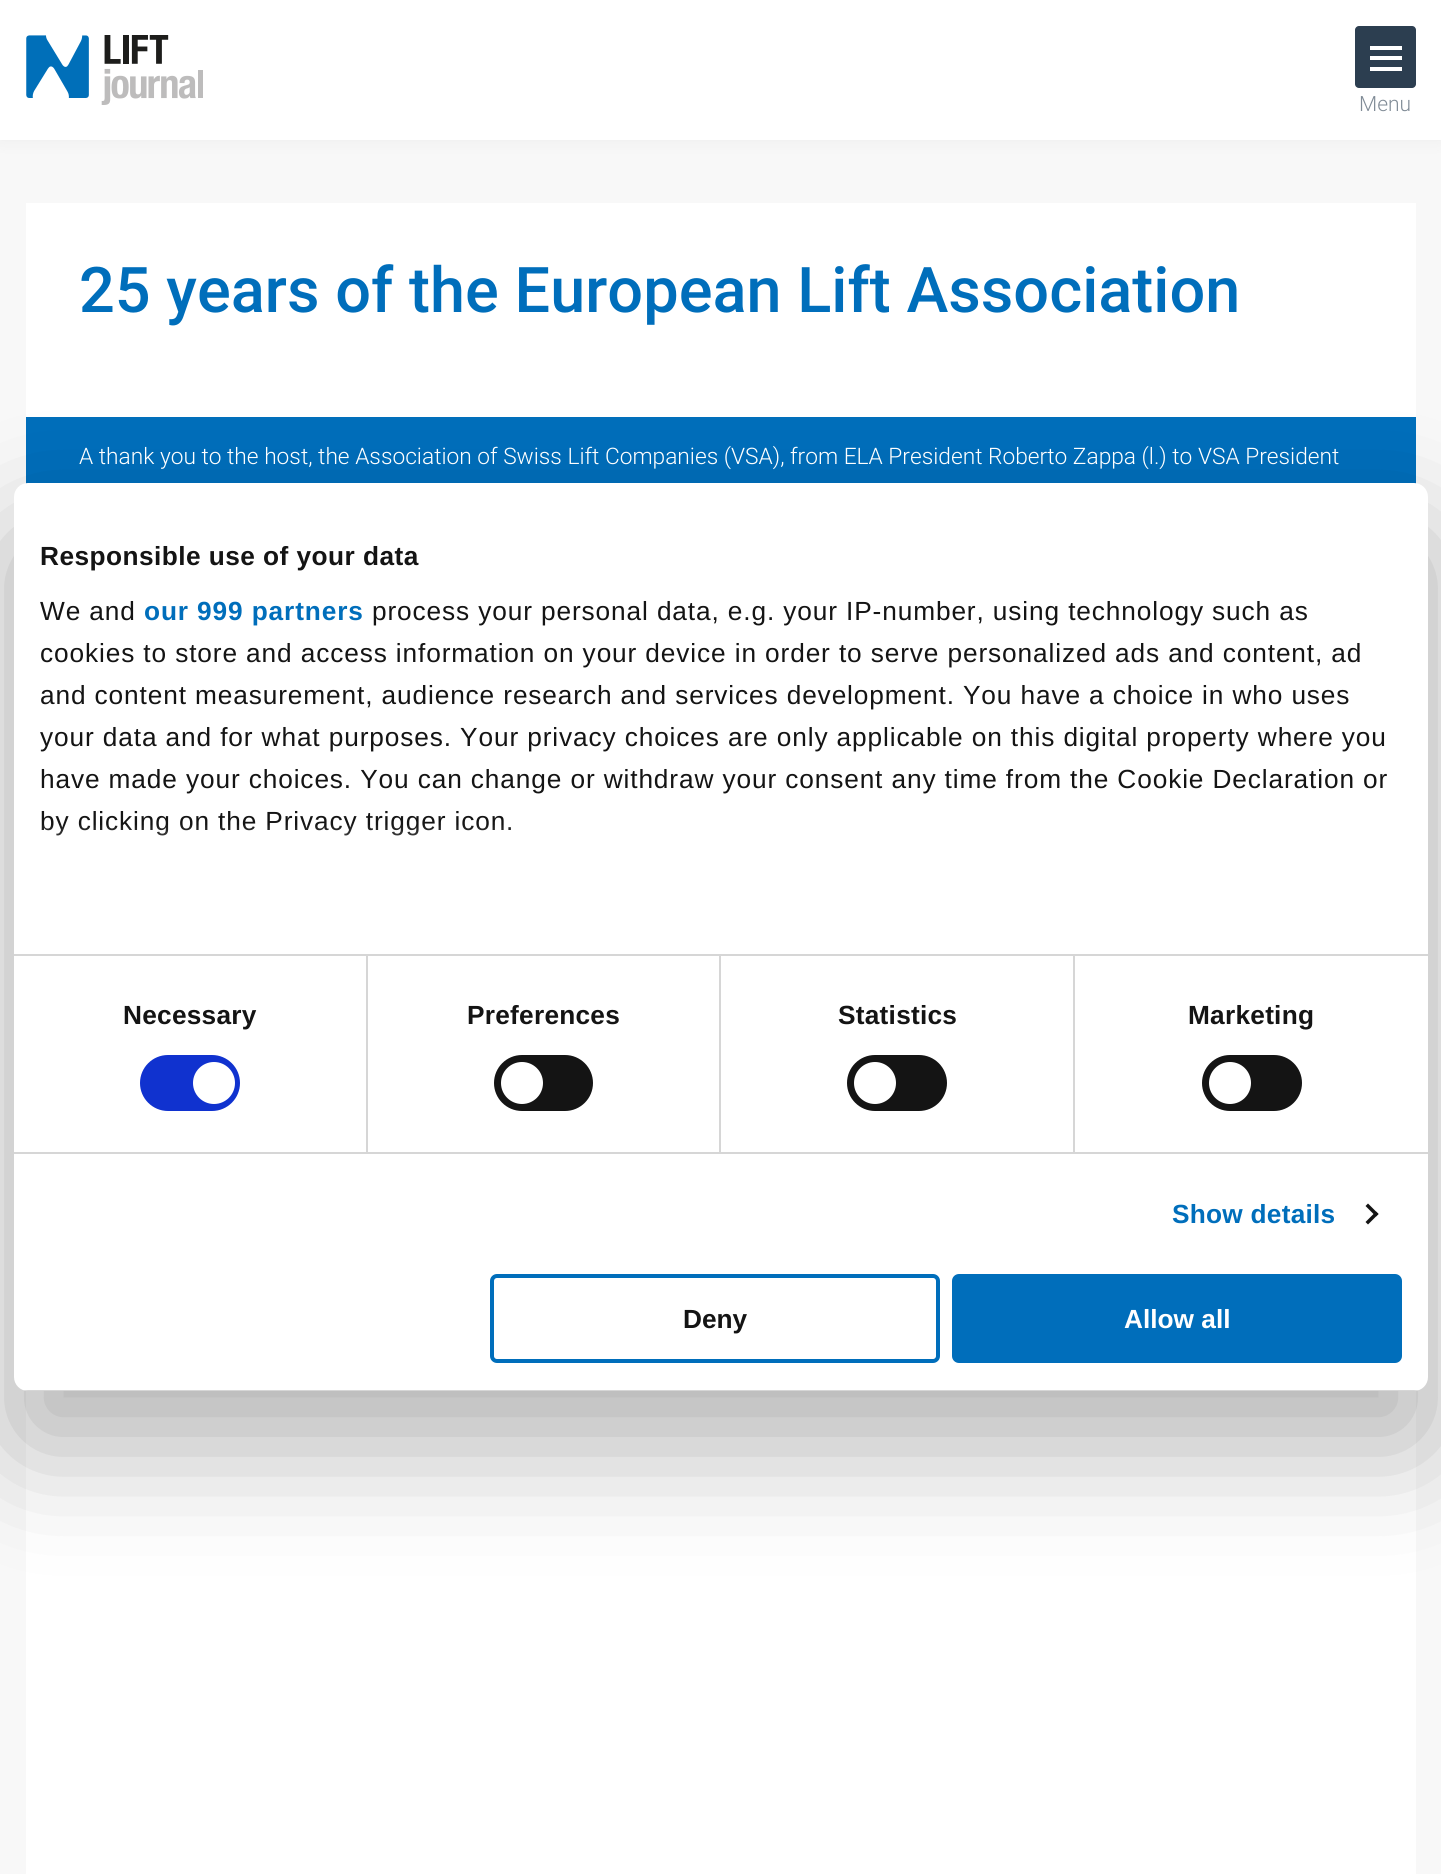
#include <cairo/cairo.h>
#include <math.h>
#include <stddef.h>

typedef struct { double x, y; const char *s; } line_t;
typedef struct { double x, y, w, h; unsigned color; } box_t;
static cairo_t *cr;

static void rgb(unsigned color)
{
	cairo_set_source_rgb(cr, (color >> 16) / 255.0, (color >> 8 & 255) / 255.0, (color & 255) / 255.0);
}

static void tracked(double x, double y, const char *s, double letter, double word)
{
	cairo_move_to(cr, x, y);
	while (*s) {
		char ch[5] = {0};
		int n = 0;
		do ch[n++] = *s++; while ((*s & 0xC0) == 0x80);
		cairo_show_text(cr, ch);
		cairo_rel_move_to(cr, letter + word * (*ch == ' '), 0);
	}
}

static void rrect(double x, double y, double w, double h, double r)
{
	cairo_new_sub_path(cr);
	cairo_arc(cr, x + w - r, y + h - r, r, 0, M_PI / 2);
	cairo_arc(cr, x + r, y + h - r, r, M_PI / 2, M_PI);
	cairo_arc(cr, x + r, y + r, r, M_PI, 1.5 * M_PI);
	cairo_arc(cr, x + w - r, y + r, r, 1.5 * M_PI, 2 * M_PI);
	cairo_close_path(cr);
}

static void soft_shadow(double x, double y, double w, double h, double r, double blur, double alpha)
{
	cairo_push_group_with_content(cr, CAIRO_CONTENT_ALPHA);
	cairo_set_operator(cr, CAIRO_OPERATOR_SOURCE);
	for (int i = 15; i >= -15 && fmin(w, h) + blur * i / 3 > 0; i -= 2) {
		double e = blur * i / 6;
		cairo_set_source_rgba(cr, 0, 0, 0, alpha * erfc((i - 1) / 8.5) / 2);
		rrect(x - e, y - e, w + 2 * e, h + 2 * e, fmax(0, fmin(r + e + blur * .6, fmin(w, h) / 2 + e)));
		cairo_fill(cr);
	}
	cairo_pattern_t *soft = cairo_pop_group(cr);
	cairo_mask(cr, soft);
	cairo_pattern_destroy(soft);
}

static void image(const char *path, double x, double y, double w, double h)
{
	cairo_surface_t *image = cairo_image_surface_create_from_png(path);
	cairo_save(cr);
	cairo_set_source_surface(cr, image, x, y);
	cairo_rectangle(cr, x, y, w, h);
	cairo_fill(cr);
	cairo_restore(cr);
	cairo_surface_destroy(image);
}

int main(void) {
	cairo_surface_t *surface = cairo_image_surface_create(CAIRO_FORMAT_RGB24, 1441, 1874);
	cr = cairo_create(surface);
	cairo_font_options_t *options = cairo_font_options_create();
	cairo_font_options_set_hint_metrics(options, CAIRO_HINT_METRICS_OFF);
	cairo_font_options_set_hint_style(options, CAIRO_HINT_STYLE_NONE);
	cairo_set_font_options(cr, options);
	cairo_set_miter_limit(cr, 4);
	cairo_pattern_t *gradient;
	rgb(0xf8f8f8);
	cairo_paint(cr);
	rgb(0x000000);
	soft_shadow(0, 0, 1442, 140, 0, 9, 0.05);
	rgb(0xffffff);
	cairo_rectangle(cr, 0, 0, 1441, 140);
	cairo_fill(cr);
	image("img/1.png", 26, 35, 177, 70);
	rgb(0x2c3e50);
	rrect(1355, 26, 61, 62, 4);
	cairo_fill(cr);
	{
		static const box_t items[] = {
			{1370, 46, 32, 4, 0xffffff},
			{1370, 56, 32, 4, 0xffffff},
			{1370, 67, 32, 4, 0xffffff},
			{26, 203, 1390, 1671, 0xffffff},
			{26, 417, 1390, 67, 0x006ebb},
		};
		for (size_t i = 0; i < sizeof items / sizeof *items; i++) {
			rgb(items[i].color);
			cairo_rectangle(cr, items[i].x, items[i].y, items[i].w, items[i].h);
			cairo_fill(cr);
		}
	}
	rgb(0x000000);
	soft_shadow(14, 539, 1414, 908, 14, 59.5, 0.3);
	rgb(0xffffff);
	rrect(14, 483, 1414, 908, 14);
	cairo_fill(cr);
	{
		static const box_t items[] = {
			{14, 954, 1414, 2, 0xd6d6d6},
			{14, 1152, 1414, 2, 0xd6d6d6},
			{366, 956, 2, 196, 0xd6d6d6},
		};
		for (size_t i = 0; i < sizeof items / sizeof *items; i++) {
			rgb(items[i].color);
			cairo_rectangle(cr, items[i].x, items[i].y, items[i].w, items[i].h);
			cairo_fill(cr);
		}
	}
	rgb(0x1032cf);
	rrect(140, 1055, 100, 56, 28);
	cairo_fill(cr);
	rgb(0xffffff);
	cairo_arc(cr, 214, 1083, 21, 0, 2 * M_PI);
	cairo_fill(cr);
	rgb(0xd6d6d6);
	cairo_rectangle(cr, 719, 956, 2, 196);
	cairo_fill(cr);
	rgb(0x141414);
	rrect(494, 1055, 99, 56, 28);
	cairo_fill(cr);
	rgb(0xffffff);
	cairo_arc(cr, 522, 1083, 21, 0, 2 * M_PI);
	cairo_fill(cr);
	rgb(0xd6d6d6);
	cairo_rectangle(cr, 1073, 956, 2, 196);
	cairo_fill(cr);
	rgb(0x141414);
	rrect(847, 1055, 100, 56, 28);
	cairo_fill(cr);
	rgb(0xffffff);
	cairo_arc(cr, 875, 1083, 21, 0, 2 * M_PI);
	cairo_fill(cr);
	rgb(0x141414);
	rrect(1202, 1055, 100, 56, 28);
	cairo_fill(cr);
	rgb(0xffffff);
	cairo_arc(cr, 1230, 1083, 21, 0, 2 * M_PI);
	cairo_fill(cr);
	rgb(0x141414);
	cairo_new_path(cr);
	cairo_move_to(cr, 1368, 1203.5);
	cairo_line_to(cr, 1378.5, 1214);
	cairo_line_to(cr, 1376, 1216.5);
	cairo_line_to(cr, 1365.5, 1206);
	cairo_close_path(cr);
	cairo_fill(cr);
	cairo_new_path(cr);
	cairo_move_to(cr, 1376, 1211.5);
	cairo_line_to(cr, 1378.5, 1214);
	cairo_line_to(cr, 1368, 1224.5);
	cairo_line_to(cr, 1365.5, 1222);
	cairo_close_path(cr);
	cairo_fill(cr);
	cairo_save(cr);
	rrect(14, 483, 1414, 908, 14);
	cairo_clip(cr);
	rgb(0xd6d6d6);
	cairo_rectangle(cr, 23, 1390, 1396, 1);
	cairo_fill(cr);
	cairo_restore(cr);
	rrect(492, 1276, 446, 85, 5);
	rgb(0x006ebb);
	cairo_set_line_width(cr, 4);
	cairo_stroke(cr);
	rrect(954, 1276, 446, 85, 5);
	cairo_fill_preserve(cr);
	cairo_stroke(cr);
	cairo_select_font_face(cr, "Roboto Light", CAIRO_FONT_SLANT_NORMAL, CAIRO_FONT_WEIGHT_NORMAL);
	cairo_set_font_size(cr, 21);
	rgb(0x808b96);
	cairo_move_to(cr, 1359, 111);
	cairo_show_text(cr, "Menu");
	cairo_select_font_face(cr, "Roboto Medium", CAIRO_FONT_SLANT_NORMAL, CAIRO_FONT_WEIGHT_NORMAL);
	cairo_set_font_size(cr, 63);
	rgb(0x006ebb);
	cairo_move_to(cr, 79, 312);
	cairo_show_text(cr, "25 years of the European Lift Association");
	cairo_select_font_face(cr, "Roboto Light", CAIRO_FONT_SLANT_NORMAL, CAIRO_FONT_WEIGHT_NORMAL);
	cairo_set_font_size(cr, 22.75);
	rgb(0xffffff);
	cairo_move_to(cr, 79, 464);
	cairo_show_text(cr, "A thank you to the host, the Association of Swiss Lift Companies (VSA), from ELA President Roberto Zappa (l.) to VSA President");
	cairo_select_font_face(cr, "Liberation Sans", CAIRO_FONT_SLANT_NORMAL, CAIRO_FONT_WEIGHT_BOLD);
	cairo_set_font_size(cr, 26.25);
	rgb(0x141414);
	tracked(40, 565, "Responsible use of your data", 0.45, 0);
	cairo_select_font_face(cr, "Liberation Sans", CAIRO_FONT_SLANT_NORMAL, CAIRO_FONT_WEIGHT_NORMAL);
	tracked(40, 620, "We and", 0.88, 0);
	cairo_select_font_face(cr, "Liberation Sans", CAIRO_FONT_SLANT_NORMAL, CAIRO_FONT_WEIGHT_BOLD);
	rgb(0x006ebb);
	tracked(144, 620, "our 999 partners", 0.88, 0);
	cairo_select_font_face(cr, "Liberation Sans", CAIRO_FONT_SLANT_NORMAL, CAIRO_FONT_WEIGHT_NORMAL);
	rgb(0x141414);
	{
		static const line_t items[] = {
			{372, 620, "process your personal data, e.g. your IP-number, using technology such as"},
			{40, 662, "cookies to store and access information on your device in order to serve personalized ads and content, ad"},
			{40, 704, "and content measurement, audience research and services development. You have a choice in who uses"},
			{40, 746, "your data and for what purposes. Your privacy choices are only applicable on this digital property where you"},
			{40, 788, "have made your choices. You can change or withdraw your consent any time from the Cookie Declaration or"},
			{40, 830, "by clicking on the Privacy trigger icon."},
		};
		for (size_t i = 0; i < sizeof items / sizeof *items; i++) {
			tracked(items[i].x, items[i].y, items[i].s, 0.88, 0);
		}
	}
	gradient = cairo_pattern_create_linear(710, 954, 710, 823);
	cairo_pattern_add_color_stop_rgba(gradient, 0, 1, 1, 1, 1);
	cairo_pattern_add_color_stop_rgba(gradient, 0.5, 1, 1, 1, 0.8);
	cairo_pattern_add_color_stop_rgba(gradient, 1, 1, 1, 1, 0);
	cairo_set_source(cr, gradient);
	cairo_pattern_destroy(gradient);
	cairo_rectangle(cr, 42, 825, 469, 11);
	cairo_fill(cr);
	cairo_select_font_face(cr, "Liberation Sans", CAIRO_FONT_SLANT_NORMAL, CAIRO_FONT_WEIGHT_BOLD);
	rgb(0x141414);
	{
		static const line_t items[] = {
			{123, 1024, "Necessary"},
			{467, 1024, "Preferences"},
			{838, 1024, "Statistics"},
			{1188, 1024, "Marketing"},
		};
		for (size_t i = 0; i < sizeof items / sizeof *items; i++) {
			tracked(items[i].x, items[i].y, items[i].s, 0.25, 0);
		}
	}
	rgb(0x006ebb);
	tracked(1172, 1223, "Show details", 0.25, 0);
	rgb(0x141414);
	cairo_move_to(cr, 683, 1328);
	cairo_show_text(cr, "Deny");
	rgb(0xffffff);
	cairo_move_to(cr, 1124, 1328);
	cairo_show_text(cr, "Allow all");
	cairo_surface_write_to_png(surface, "page.png");
	cairo_font_options_destroy(options);
	cairo_destroy(cr);
	cairo_surface_destroy(surface);
	return 0;
}
